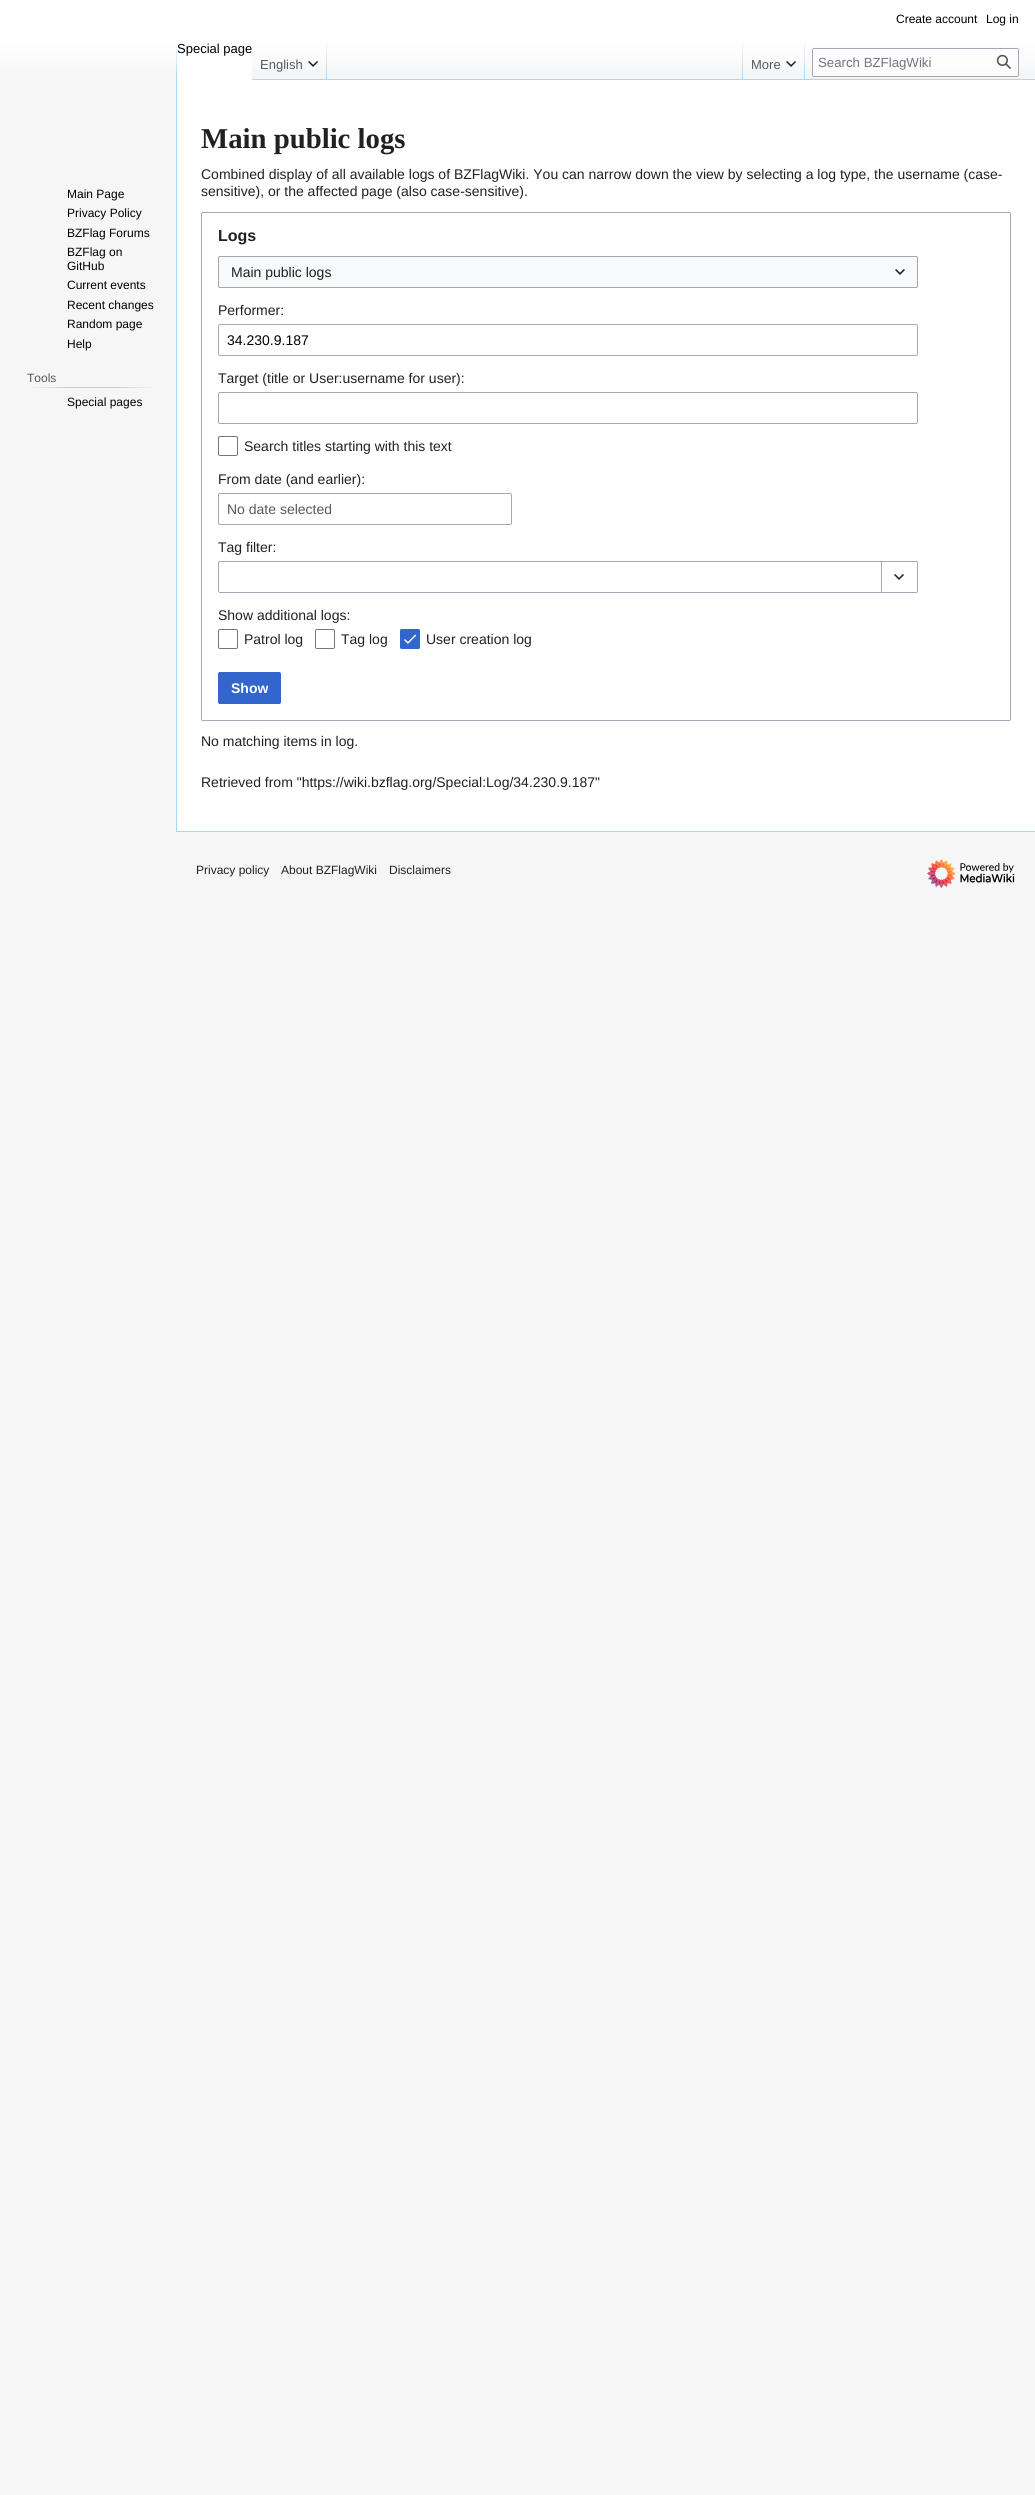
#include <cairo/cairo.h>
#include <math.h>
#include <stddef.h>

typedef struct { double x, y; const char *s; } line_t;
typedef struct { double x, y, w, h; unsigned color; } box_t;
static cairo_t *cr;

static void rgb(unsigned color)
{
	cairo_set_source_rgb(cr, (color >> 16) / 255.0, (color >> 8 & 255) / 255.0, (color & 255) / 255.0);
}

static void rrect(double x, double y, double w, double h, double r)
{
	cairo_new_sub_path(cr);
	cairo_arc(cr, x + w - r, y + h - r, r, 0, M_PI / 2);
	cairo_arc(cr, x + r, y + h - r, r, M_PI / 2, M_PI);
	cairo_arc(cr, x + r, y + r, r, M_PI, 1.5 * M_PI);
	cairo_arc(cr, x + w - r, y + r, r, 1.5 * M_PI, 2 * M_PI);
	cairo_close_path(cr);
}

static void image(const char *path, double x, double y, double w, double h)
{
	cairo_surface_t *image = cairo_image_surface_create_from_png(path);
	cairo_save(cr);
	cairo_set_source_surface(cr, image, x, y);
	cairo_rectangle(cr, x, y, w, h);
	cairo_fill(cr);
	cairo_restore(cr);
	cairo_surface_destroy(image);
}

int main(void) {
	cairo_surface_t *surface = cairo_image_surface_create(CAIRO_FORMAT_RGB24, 1035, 2495);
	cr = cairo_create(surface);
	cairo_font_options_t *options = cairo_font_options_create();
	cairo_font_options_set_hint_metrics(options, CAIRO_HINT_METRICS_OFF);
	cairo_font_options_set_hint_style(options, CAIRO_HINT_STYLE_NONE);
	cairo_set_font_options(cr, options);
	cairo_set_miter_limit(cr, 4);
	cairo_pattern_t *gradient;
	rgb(0xf6f6f6);
	cairo_paint(cr);
	gradient = cairo_pattern_create_linear(518, 0, 518, 80);
	cairo_pattern_add_color_stop_rgba(gradient, 0.5, 1, 1, 1, 1);
	cairo_pattern_add_color_stop_rgba(gradient, 1, 0.965, 0.965, 0.965, 1);
	cairo_set_source(cr, gradient);
	cairo_pattern_destroy(gradient);
	cairo_rectangle(cr, 0, 0, 1035, 69);
	cairo_fill(cr);
	rgb(0xa7d7f9);
	cairo_rectangle(cr, 176, 831, 859, 1);
	cairo_fill(cr);
	cairo_rectangle(cr, 176, 79, 1, 753);
	cairo_fill(cr);
	gradient = cairo_pattern_create_linear(177, 40, 177, 80);
	cairo_pattern_add_color_stop_rgba(gradient, 0, 0.655, 0.843, 0.976, 0);
	cairo_pattern_add_color_stop_rgba(gradient, 1, 0.655, 0.843, 0.976, 1);
	cairo_set_source(cr, gradient);
	cairo_pattern_destroy(gradient);
	cairo_rectangle(cr, 176, 40, 1, 40);
	cairo_fill(cr);
	rgb(0xffffff);
	cairo_rectangle(cr, 177, 51, 75, 29);
	cairo_fill(cr);
	rgb(0xa7d7f9);
	cairo_rectangle(cr, 252, 79, 783, 1);
	cairo_fill(cr);
	gradient = cairo_pattern_create_linear(327, 40, 327, 80);
	cairo_pattern_add_color_stop_rgba(gradient, 0, 0.655, 0.843, 0.976, 0);
	cairo_pattern_add_color_stop_rgba(gradient, 1, 0.655, 0.843, 0.976, 1);
	cairo_set_source(cr, gradient);
	cairo_pattern_destroy(gradient);
	cairo_rectangle(cr, 326, 40, 1, 40);
	cairo_fill(cr);
	image("img/1.png", 308, 61, 10, 6);
	gradient = cairo_pattern_create_linear(743, 40, 743, 80);
	cairo_pattern_add_color_stop_rgba(gradient, 0, 0.655, 0.843, 0.976, 0);
	cairo_pattern_add_color_stop_rgba(gradient, 1, 0.655, 0.843, 0.976, 1);
	cairo_set_source(cr, gradient);
	cairo_pattern_destroy(gradient);
	cairo_rectangle(cr, 742, 40, 1, 40);
	cairo_fill(cr);
	gradient = cairo_pattern_create_linear(805, 40, 805, 80);
	cairo_pattern_add_color_stop_rgba(gradient, 0, 0.655, 0.843, 0.976, 0);
	cairo_pattern_add_color_stop_rgba(gradient, 1, 0.655, 0.843, 0.976, 1);
	cairo_set_source(cr, gradient);
	cairo_pattern_destroy(gradient);
	cairo_rectangle(cr, 804, 40, 1, 40);
	cairo_fill(cr);
	image("img/1.png", 786, 61, 10, 6);
	cairo_set_source_rgba(cr, 1, 1, 1, 0.5);
	rrect(812.5, 48.5, 206, 28, 1.5);
	cairo_fill_preserve(cr);
	rgb(0xa2a9b1);
	cairo_set_line_width(cr, 1);
	cairo_stroke(cr);
	image("img/2.png", 996, 54, 15, 15);
	gradient = cairo_pattern_create_linear(27, 388, 158, 388);
	cairo_pattern_add_color_stop_rgba(gradient, 0, 0.965, 0.965, 0.965, 1);
	cairo_pattern_add_color_stop_rgba(gradient, 0.33, 0.784, 0.8, 0.82, 1);
	cairo_pattern_add_color_stop_rgba(gradient, 0.66, 0.784, 0.8, 0.82, 1);
	cairo_pattern_add_color_stop_rgba(gradient, 1, 0.965, 0.965, 0.965, 1);
	cairo_set_source(cr, gradient);
	cairo_pattern_destroy(gradient);
	cairo_rectangle(cr, 27, 387, 131, 1);
	cairo_fill(cr);
	rgb(0xffffff);
	cairo_rectangle(cr, 177, 80, 858, 751);
	cairo_fill(cr);
	rrect(201.5, 212.5, 809, 508, 1.5);
	rgb(0xa2a9b1);
	cairo_stroke(cr);
	rgb(0xf8f9fa);
	cairo_rectangle(cr, 218, 256, 700, 32);
	cairo_fill(cr);
	rrect(218.5, 256.5, 699, 31, 1.5);
	rgb(0xa2a9b1);
	cairo_stroke(cr);
	image("img/3.png", 895, 269, 10, 6);
	rrect(218.5, 324.5, 699, 31, 1.5);
	cairo_stroke(cr);
	rrect(218.5, 392.5, 699, 31, 1.5);
	cairo_stroke(cr);
	rrect(218.5, 436.5, 19, 19, 1.5);
	rgb(0x72777d);
	cairo_stroke(cr);
	rrect(218.5, 493.5, 293, 31, 1.5);
	rgb(0xa2a9b1);
	cairo_stroke(cr);
	{
		static const box_t items[] = {
			{219, 561, 662, 1, 0xa2a9b1},
			{219, 592, 662, 1, 0xa2a9b1},
			{218, 562, 1, 30, 0xa2a9b1},
		};
		for (size_t i = 0; i < sizeof items / sizeof *items; i++) {
			rgb(items[i].color);
			cairo_rectangle(cr, items[i].x, items[i].y, items[i].w, items[i].h);
			cairo_fill(cr);
		}
	}
	cairo_new_path(cr);
	cairo_move_to(cr, 881.5, 561.5);
	cairo_line_to(cr, 916, 561.5);
	cairo_curve_to(cr, 917, 561.5, 917.5, 562, 917.5, 563);
	cairo_line_to(cr, 917.5, 591);
	cairo_curve_to(cr, 917.5, 592, 917, 592.5, 916, 592.5);
	cairo_line_to(cr, 881.5, 592.5);
	cairo_close_path(cr);
	cairo_stroke(cr);
	image("img/4.png", 894, 574, 10, 6);
	rrect(218.5, 629.5, 19, 19, 1.5);
	rgb(0x72777d);
	cairo_stroke(cr);
	rrect(315.5, 629.5, 19, 19, 1.5);
	cairo_stroke(cr);
	rgb(0x3366cc);
	rrect(400, 629, 20, 20, 2);
	cairo_fill(cr);
	image("img/5.png", 404, 634, 13, 10);
	rrect(400.5, 629.5, 19, 19, 1.5);
	cairo_stroke(cr);
	rrect(218.5, 672.5, 62, 31, 1.5);
	cairo_fill_preserve(cr);
	cairo_stroke(cr);
	image("img/6.png", 927, 859, 88, 29);
	cairo_select_font_face(cr, "Liberation Sans", CAIRO_FONT_SLANT_NORMAL, CAIRO_FONT_WEIGHT_NORMAL);
	cairo_set_font_size(cr, 12);
	rgb(0x000000);
	cairo_move_to(cr, 896, 23);
	cairo_show_text(cr, "Create account");
	cairo_move_to(cr, 986, 23);
	cairo_show_text(cr, "Log in");
	cairo_set_font_size(cr, 13);
	cairo_move_to(cr, 177, 53);
	cairo_show_text(cr, "Special page");
	rgb(0x54595d);
	cairo_move_to(cr, 260, 69);
	cairo_show_text(cr, "English");
	cairo_move_to(cr, 751, 69);
	cairo_show_text(cr, "More");
	cairo_set_font_size(cr, 13.25);
	rgb(0x72777d);
	cairo_move_to(cr, 818, 67);
	cairo_show_text(cr, "Search BZFlagWiki");
	cairo_set_font_size(cr, 12);
	rgb(0x000000);
	{
		static const line_t items[] = {
			{67, 198, "Main Page"},
			{67, 217, "Privacy Policy"},
			{67, 237, "BZFlag Forums"},
			{67, 256, "BZFlag on"},
			{67, 270, "GitHub"},
			{67, 289, "Current events"},
			{67, 309, "Recent changes"},
			{67, 328, "Random page"},
			{67, 348, "Help"},
		};
		for (size_t i = 0; i < sizeof items / sizeof *items; i++) {
			cairo_move_to(cr, items[i].x, items[i].y);
			cairo_show_text(cr, items[i].s);
		}
	}
	rgb(0x54595d);
	cairo_move_to(cr, 27, 382);
	cairo_show_text(cr, "Tools");
	rgb(0x000000);
	cairo_move_to(cr, 67, 406);
	cairo_show_text(cr, "Special pages");
	cairo_select_font_face(cr, "Liberation Serif", CAIRO_FONT_SLANT_NORMAL, CAIRO_FONT_WEIGHT_BOLD);
	cairo_set_font_size(cr, 28.75);
	rgb(0x202122);
	cairo_move_to(cr, 201, 148);
	cairo_show_text(cr, "Main public logs");
	cairo_select_font_face(cr, "Liberation Sans", CAIRO_FONT_SLANT_NORMAL, CAIRO_FONT_WEIGHT_NORMAL);
	cairo_set_font_size(cr, 14);
	cairo_move_to(cr, 201, 179);
	cairo_show_text(cr, "Combined display of all available logs of BZFlagWiki. You can narrow down the view by selecting a log type, the username (case-");
	cairo_move_to(cr, 201, 196);
	cairo_show_text(cr, "sensitive), or the affected page (also case-sensitive).");
	cairo_select_font_face(cr, "Liberation Sans", CAIRO_FONT_SLANT_NORMAL, CAIRO_FONT_WEIGHT_BOLD);
	cairo_set_font_size(cr, 16);
	cairo_move_to(cr, 218, 241);
	cairo_show_text(cr, "Logs");
	cairo_select_font_face(cr, "Liberation Sans", CAIRO_FONT_SLANT_NORMAL, CAIRO_FONT_WEIGHT_NORMAL);
	cairo_set_font_size(cr, 14);
	cairo_move_to(cr, 231, 277);
	cairo_show_text(cr, "Main public logs");
	cairo_move_to(cr, 218, 315);
	cairo_show_text(cr, "Performer:");
	rgb(0x000000);
	cairo_move_to(cr, 227, 345);
	cairo_show_text(cr, "34.230.9.187");
	rgb(0x202122);
	{
		static const line_t items[] = {
			{218, 383, "Target (title or User:username for user):"},
			{244, 451, "Search titles starting with this text"},
			{218, 484, "From date (and earlier):"},
		};
		for (size_t i = 0; i < sizeof items / sizeof *items; i++) {
			cairo_move_to(cr, items[i].x, items[i].y);
			cairo_show_text(cr, items[i].s);
		}
	}
	rgb(0x54595d);
	cairo_move_to(cr, 227, 514);
	cairo_show_text(cr, "No date selected");
	rgb(0x202122);
	{
		static const line_t items[] = {
			{218, 552, "Tag filter:"},
			{218, 620, "Show additional logs:"},
			{244, 644, "Patrol log"},
			{341, 644, "Tag log"},
			{426, 644, "User creation log"},
		};
		for (size_t i = 0; i < sizeof items / sizeof *items; i++) {
			cairo_move_to(cr, items[i].x, items[i].y);
			cairo_show_text(cr, items[i].s);
		}
	}
	cairo_select_font_face(cr, "Liberation Sans", CAIRO_FONT_SLANT_NORMAL, CAIRO_FONT_WEIGHT_BOLD);
	rgb(0xffffff);
	cairo_move_to(cr, 231, 693);
	cairo_show_text(cr, "Show");
	cairo_select_font_face(cr, "Liberation Sans", CAIRO_FONT_SLANT_NORMAL, CAIRO_FONT_WEIGHT_NORMAL);
	rgb(0x202122);
	cairo_move_to(cr, 201, 746);
	cairo_show_text(cr, "No matching items in log.");
	cairo_move_to(cr, 201, 787);
	cairo_show_text(cr, "Retrieved from \"https://wiki.bzflag.org/Special:Log/34.230.9.187\"");
	cairo_set_font_size(cr, 12);
	{
		static const line_t items[] = {
			{196, 874, "Privacy policy"},
			{281, 874, "About BZFlagWiki"},
			{389, 874, "Disclaimers"},
		};
		for (size_t i = 0; i < sizeof items / sizeof *items; i++) {
			cairo_move_to(cr, items[i].x, items[i].y);
			cairo_show_text(cr, items[i].s);
		}
	}
	cairo_surface_write_to_png(surface, "page.png");
	cairo_font_options_destroy(options);
	cairo_destroy(cr);
	cairo_surface_destroy(surface);
	return 0;
}
